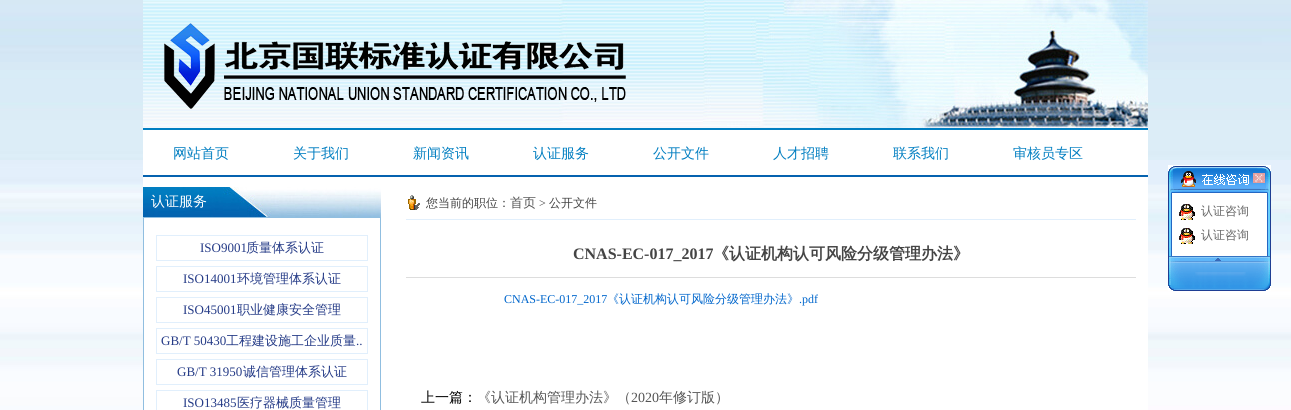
#include <cairo/cairo.h>
#include <math.h>
#include <stddef.h>

typedef struct { double x, y; const char *s; } line_t;
typedef struct { double x, y, w, h; unsigned color; } box_t;
static cairo_t *cr;

static void rgb(unsigned color)
{
	cairo_set_source_rgb(cr, (color >> 16) / 255.0, (color >> 8 & 255) / 255.0, (color & 255) / 255.0);
}

static void image(const char *path, double x, double y, double w, double h)
{
	cairo_surface_t *image = cairo_image_surface_create_from_png(path);
	cairo_save(cr);
	cairo_set_source_surface(cr, image, x, y);
	cairo_rectangle(cr, x, y, w, h);
	cairo_fill(cr);
	cairo_restore(cr);
	cairo_surface_destroy(image);
}

int main(void) {
	cairo_surface_t *surface = cairo_image_surface_create(CAIRO_FORMAT_RGB24, 1291, 410);
	cr = cairo_create(surface);
	cairo_font_options_t *options = cairo_font_options_create();
	cairo_font_options_set_hint_metrics(options, CAIRO_HINT_METRICS_OFF);
	cairo_font_options_set_hint_style(options, CAIRO_HINT_STYLE_NONE);
	cairo_set_font_options(cr, options);
	cairo_set_miter_limit(cr, 4);
	rgb(0xffffff);
	cairo_paint(cr);
	image("img/1.png", 0, 0, 1291, 410);
	image("img/2.png", 143, 0, 1005, 128);
	image("img/3.png", 164, 23, 462, 86);
	{
		static const box_t items[] = {
			{143, 130, 1005, 45, 0xffffff},
			{143, 128, 1005, 2, 0x017ec1},
			{143, 175, 1005, 2, 0x0562af},
			{143, 177, 1005, 233, 0xffffff},
		};
		for (size_t i = 0; i < sizeof items / sizeof *items; i++) {
			rgb(items[i].color);
			cairo_rectangle(cr, items[i].x, items[i].y, items[i].w, items[i].h);
			cairo_fill(cr);
		}
	}
	image("img/4.png", 143, 187, 238, 30);
	cairo_rectangle(cr, 143.5, 217.5, 237, 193);
	rgb(0x90bee0);
	cairo_set_line_width(cr, 1);
	cairo_stroke(cr);
	cairo_rectangle(cr, 156.5, 235.5, 211, 25);
	rgb(0xe1effc);
	cairo_stroke(cr);
	cairo_rectangle(cr, 156.5, 266.5, 211, 25);
	cairo_stroke(cr);
	cairo_rectangle(cr, 156.5, 297.5, 211, 25);
	cairo_stroke(cr);
	cairo_rectangle(cr, 156.5, 328.5, 211, 25);
	cairo_stroke(cr);
	cairo_rectangle(cr, 156.5, 359.5, 211, 25);
	cairo_stroke(cr);
	cairo_rectangle(cr, 156.5, 390.5, 211, 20);
	cairo_stroke(cr);
	cairo_rectangle(cr, 406, 219, 730, 1);
	cairo_fill(cr);
	image("img/5.png", 408, 195, 12, 15);
	rgb(0xdddddd);
	cairo_rectangle(cr, 406, 277, 730, 1);
	cairo_fill(cr);
	image("img/6.png", 1168, 165, 103, 35);
	image("img/7.png", 1253, 173, 12, 10);
	image("img/8.png", 1168, 200, 103, 48);
	image("img/9.png", 1179, 204, 16, 16);
	image("img/9.png", 1179, 228, 16, 16);
	image("img/10.png", 1168, 248, 103, 43);
	cairo_select_font_face(cr, "WenQuanYi Zen Hei Medium", CAIRO_FONT_SLANT_NORMAL, CAIRO_FONT_WEIGHT_NORMAL);
	cairo_set_font_size(cr, 14);
	rgb(0x017ec1);
	{
		static const line_t items[] = {
			{173, 158, "网站首页"},
			{293, 158, "关于我们"},
			{413, 158, "新闻资讯"},
			{533, 158, "认证服务"},
			{653, 158, "公开文件"},
			{773, 158, "人才招聘"},
			{893, 158, "联系我们"},
			{1013, 158, "审核员专区"},
		};
		for (size_t i = 0; i < sizeof items / sizeof *items; i++) {
			cairo_move_to(cr, items[i].x, items[i].y);
			cairo_show_text(cr, items[i].s);
		}
	}
	rgb(0xffffff);
	cairo_move_to(cr, 151, 206);
	cairo_show_text(cr, "认证服务");
	cairo_select_font_face(cr, "Liberation Serif", CAIRO_FONT_SLANT_NORMAL, CAIRO_FONT_WEIGHT_NORMAL);
	cairo_set_font_size(cr, 13);
	rgb(0x253b87);
	cairo_move_to(cr, 200, 252);
	cairo_show_text(cr, "ISO9001");
	cairo_select_font_face(cr, "WenQuanYi Zen Hei Medium", CAIRO_FONT_SLANT_NORMAL, CAIRO_FONT_WEIGHT_NORMAL);
	cairo_move_to(cr, 246, 252);
	cairo_show_text(cr, "质量体系认证");
	cairo_select_font_face(cr, "Liberation Serif", CAIRO_FONT_SLANT_NORMAL, CAIRO_FONT_WEIGHT_NORMAL);
	cairo_move_to(cr, 183, 283);
	cairo_show_text(cr, "ISO14001");
	cairo_select_font_face(cr, "WenQuanYi Zen Hei Medium", CAIRO_FONT_SLANT_NORMAL, CAIRO_FONT_WEIGHT_NORMAL);
	cairo_move_to(cr, 237, 283);
	cairo_show_text(cr, "环境管理体系认证");
	cairo_select_font_face(cr, "Liberation Serif", CAIRO_FONT_SLANT_NORMAL, CAIRO_FONT_WEIGHT_NORMAL);
	cairo_move_to(cr, 183, 314);
	cairo_show_text(cr, "ISO45001");
	cairo_select_font_face(cr, "WenQuanYi Zen Hei Medium", CAIRO_FONT_SLANT_NORMAL, CAIRO_FONT_WEIGHT_NORMAL);
	cairo_move_to(cr, 237, 314);
	cairo_show_text(cr, "职业健康安全管理");
	cairo_select_font_face(cr, "Liberation Serif", CAIRO_FONT_SLANT_NORMAL, CAIRO_FONT_WEIGHT_NORMAL);
	cairo_move_to(cr, 161, 345);
	cairo_show_text(cr, "GB/T 50430");
	cairo_select_font_face(cr, "WenQuanYi Zen Hei Medium", CAIRO_FONT_SLANT_NORMAL, CAIRO_FONT_WEIGHT_NORMAL);
	cairo_move_to(cr, 226, 345);
	cairo_show_text(cr, "工程建设施工企业质量");
	cairo_select_font_face(cr, "Liberation Serif", CAIRO_FONT_SLANT_NORMAL, CAIRO_FONT_WEIGHT_NORMAL);
	cairo_move_to(cr, 356, 345);
	cairo_show_text(cr, "..");
	cairo_move_to(cr, 177, 376);
	cairo_show_text(cr, "GB/T 31950");
	cairo_select_font_face(cr, "WenQuanYi Zen Hei Medium", CAIRO_FONT_SLANT_NORMAL, CAIRO_FONT_WEIGHT_NORMAL);
	cairo_move_to(cr, 243, 376);
	cairo_show_text(cr, "诚信管理体系认证");
	cairo_select_font_face(cr, "Liberation Serif", CAIRO_FONT_SLANT_NORMAL, CAIRO_FONT_WEIGHT_NORMAL);
	cairo_move_to(cr, 183, 407);
	cairo_show_text(cr, "ISO13485");
	cairo_select_font_face(cr, "WenQuanYi Zen Hei Medium", CAIRO_FONT_SLANT_NORMAL, CAIRO_FONT_WEIGHT_NORMAL);
	cairo_move_to(cr, 237, 407);
	cairo_show_text(cr, "医疗器械质量管理");
	cairo_set_font_size(cr, 12);
	rgb(0x444444);
	cairo_move_to(cr, 426, 207);
	cairo_show_text(cr, "您当前的职位：");
	cairo_set_font_size(cr, 13);
	rgb(0x555555);
	cairo_move_to(cr, 510, 207);
	cairo_show_text(cr, "首页");
	cairo_select_font_face(cr, "Liberation Serif", CAIRO_FONT_SLANT_NORMAL, CAIRO_FONT_WEIGHT_NORMAL);
	cairo_set_font_size(cr, 12);
	rgb(0x444444);
	cairo_move_to(cr, 539, 207);
	cairo_show_text(cr, ">");
	cairo_select_font_face(cr, "WenQuanYi Zen Hei Medium", CAIRO_FONT_SLANT_NORMAL, CAIRO_FONT_WEIGHT_NORMAL);
	cairo_move_to(cr, 549, 207);
	cairo_show_text(cr, "公开文件");
	cairo_select_font_face(cr, "Liberation Serif", CAIRO_FONT_SLANT_NORMAL, CAIRO_FONT_WEIGHT_BOLD);
	cairo_set_font_size(cr, 16);
	cairo_move_to(cr, 573, 259);
	cairo_show_text(cr, "CNAS-EC-017_2017");
	cairo_select_font_face(cr, "WenQuanYi Zen Hei", CAIRO_FONT_SLANT_NORMAL, CAIRO_FONT_WEIGHT_BOLD);
	cairo_move_to(cr, 713, 259);
	cairo_show_text(cr, "《认证机构认可风险分级管理办法》");
	cairo_select_font_face(cr, "Liberation Serif", CAIRO_FONT_SLANT_NORMAL, CAIRO_FONT_WEIGHT_NORMAL);
	cairo_set_font_size(cr, 12);
	rgb(0x0066cc);
	cairo_move_to(cr, 504, 303);
	cairo_show_text(cr, "CNAS-EC-017_2017");
	cairo_select_font_face(cr, "WenQuanYi Zen Hei Medium", CAIRO_FONT_SLANT_NORMAL, CAIRO_FONT_WEIGHT_NORMAL);
	cairo_move_to(cr, 607, 303);
	cairo_show_text(cr, "《认证机构认可风险分级管理办法》");
	cairo_select_font_face(cr, "Liberation Serif", CAIRO_FONT_SLANT_NORMAL, CAIRO_FONT_WEIGHT_NORMAL);
	cairo_move_to(cr, 799, 303);
	cairo_show_text(cr, ".pdf");
	cairo_select_font_face(cr, "WenQuanYi Zen Hei Medium", CAIRO_FONT_SLANT_NORMAL, CAIRO_FONT_WEIGHT_NORMAL);
	cairo_set_font_size(cr, 14);
	rgb(0x000000);
	cairo_move_to(cr, 421, 402);
	cairo_show_text(cr, "上一篇：");
	rgb(0x555555);
	cairo_move_to(cr, 477, 402);
	cairo_show_text(cr, "《认证机构管理办法》（");
	cairo_select_font_face(cr, "Liberation Serif", CAIRO_FONT_SLANT_NORMAL, CAIRO_FONT_WEIGHT_NORMAL);
	cairo_move_to(cr, 631, 402);
	cairo_show_text(cr, "2020");
	cairo_select_font_face(cr, "WenQuanYi Zen Hei Medium", CAIRO_FONT_SLANT_NORMAL, CAIRO_FONT_WEIGHT_NORMAL);
	cairo_move_to(cr, 659, 402);
	cairo_show_text(cr, "年修订版）");
	cairo_set_font_size(cr, 12);
	rgb(0x666666);
	cairo_move_to(cr, 1201, 215);
	cairo_show_text(cr, "认证咨询");
	cairo_move_to(cr, 1201, 239);
	cairo_show_text(cr, "认证咨询");
	cairo_surface_write_to_png(surface, "page.png");
	cairo_font_options_destroy(options);
	cairo_destroy(cr);
	cairo_surface_destroy(surface);
	return 0;
}
